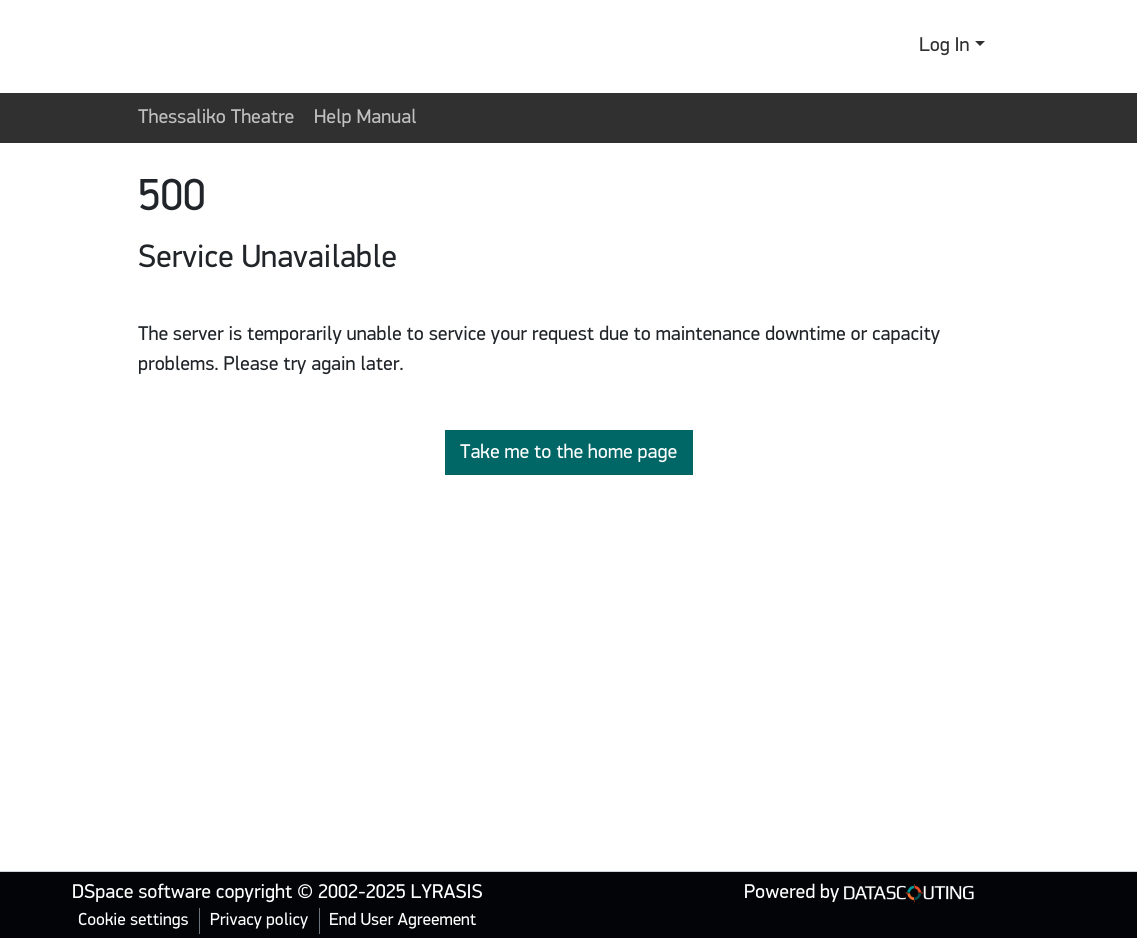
#include <cairo/cairo.h>
#include <math.h>
#include <stddef.h>

typedef struct { double x, y; const char *s; } line_t;
typedef struct { double x, y, w, h; unsigned color; } box_t;
static cairo_t *cr;

static void rgb(unsigned color)
{
	cairo_set_source_rgb(cr, (color >> 16) / 255.0, (color >> 8 & 255) / 255.0, (color & 255) / 255.0);
}

static void image(const char *path, double x, double y, double w, double h)
{
	cairo_surface_t *image = cairo_image_surface_create_from_png(path);
	cairo_save(cr);
	cairo_set_source_surface(cr, image, x, y);
	cairo_rectangle(cr, x, y, w, h);
	cairo_fill(cr);
	cairo_restore(cr);
	cairo_surface_destroy(image);
}

int main(void) {
	cairo_surface_t *surface = cairo_image_surface_create(CAIRO_FORMAT_RGB24, 1137, 938);
	cr = cairo_create(surface);
	cairo_font_options_t *options = cairo_font_options_create();
	cairo_font_options_set_hint_metrics(options, CAIRO_HINT_METRICS_OFF);
	cairo_font_options_set_hint_style(options, CAIRO_HINT_STYLE_NONE);
	cairo_set_font_options(cr, options);
	cairo_set_miter_limit(cr, 4);
	rgb(0xffffff);
	cairo_paint(cr);
	rgb(0x303030);
	cairo_new_path(cr);
	cairo_move_to(cr, 975, 41);
	cairo_line_to(cr, 985, 41);
	cairo_line_to(cr, 980, 46);
	cairo_close_path(cr);
	cairo_fill(cr);
	{
		static const box_t items[] = {
			{0, 93, 1137, 50, 0x303030},
			{445, 430, 248, 45, 0x006666},
			{0, 872, 1137, 66, 0x020407},
			{0, 871, 1137, 1, 0xced4da},
			{199, 908, 1, 26, 0x6c757d},
			{319, 908, 1, 26, 0x6c757d},
		};
		for (size_t i = 0; i < sizeof items / sizeof *items; i++) {
			rgb(items[i].color);
			cairo_rectangle(cr, items[i].x, items[i].y, items[i].w, items[i].h);
			cairo_fill(cr);
		}
	}
	image("img/1.png", 844, 884, 130, 19);
	cairo_select_font_face(cr, "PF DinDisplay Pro", CAIRO_FONT_SLANT_NORMAL, CAIRO_FONT_WEIGHT_NORMAL);
	cairo_set_font_size(cr, 20);
	rgb(0x303030);
	cairo_move_to(cr, 919, 51);
	cairo_show_text(cr, "Log In");
	rgb(0xc0c0c0);
	cairo_move_to(cr, 138, 123);
	cairo_show_text(cr, "Thessaliko Theatre");
	cairo_move_to(cr, 314, 123);
	cairo_show_text(cr, "Help Manual");
	cairo_set_font_size(cr, 45);
	rgb(0x212529);
	cairo_move_to(cr, 138, 210);
	cairo_show_text(cr, "500");
	cairo_set_font_size(cr, 32.25);
	cairo_move_to(cr, 138, 267);
	cairo_show_text(cr, "Service Unavailable");
	cairo_set_font_size(cr, 20);
	cairo_move_to(cr, 138, 340);
	cairo_show_text(cr, "The server is temporarily unable to service your request due to maintenance downtime or capacity");
	cairo_move_to(cr, 138, 370);
	cairo_show_text(cr, "problems. Please try again later.");
	rgb(0xffffff);
	cairo_move_to(cr, 460, 458);
	cairo_show_text(cr, "Take me to the home page");
	cairo_move_to(cr, 72, 898);
	cairo_show_text(cr, "DSpace software copyright © 2002-2025 LYRASIS");
	cairo_set_font_size(cr, 17.5);
	{
		static const line_t items[] = {
			{78, 925, "Cookie settings"},
			{210, 925, "Privacy policy"},
			{329, 925, "End User Agreement"},
		};
		for (size_t i = 0; i < sizeof items / sizeof *items; i++) {
			cairo_move_to(cr, items[i].x, items[i].y);
			cairo_show_text(cr, items[i].s);
		}
	}
	cairo_set_font_size(cr, 20);
	cairo_move_to(cr, 744, 898);
	cairo_show_text(cr, "Powered by");
	cairo_surface_write_to_png(surface, "page.png");
	cairo_font_options_destroy(options);
	cairo_destroy(cr);
	cairo_surface_destroy(surface);
	return 0;
}
